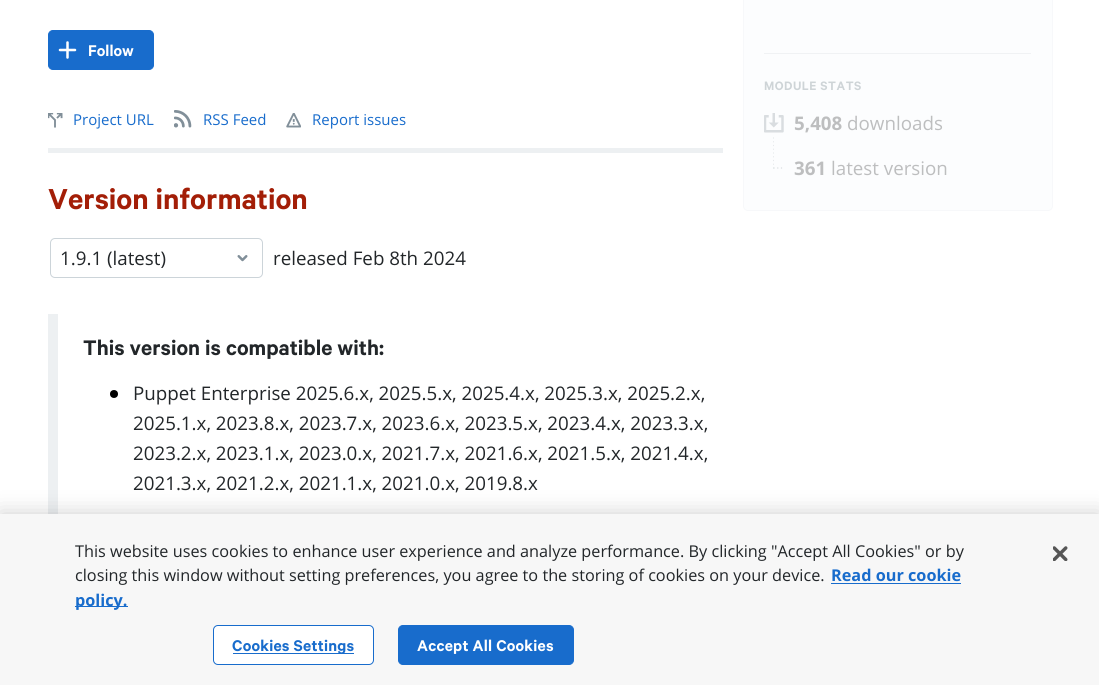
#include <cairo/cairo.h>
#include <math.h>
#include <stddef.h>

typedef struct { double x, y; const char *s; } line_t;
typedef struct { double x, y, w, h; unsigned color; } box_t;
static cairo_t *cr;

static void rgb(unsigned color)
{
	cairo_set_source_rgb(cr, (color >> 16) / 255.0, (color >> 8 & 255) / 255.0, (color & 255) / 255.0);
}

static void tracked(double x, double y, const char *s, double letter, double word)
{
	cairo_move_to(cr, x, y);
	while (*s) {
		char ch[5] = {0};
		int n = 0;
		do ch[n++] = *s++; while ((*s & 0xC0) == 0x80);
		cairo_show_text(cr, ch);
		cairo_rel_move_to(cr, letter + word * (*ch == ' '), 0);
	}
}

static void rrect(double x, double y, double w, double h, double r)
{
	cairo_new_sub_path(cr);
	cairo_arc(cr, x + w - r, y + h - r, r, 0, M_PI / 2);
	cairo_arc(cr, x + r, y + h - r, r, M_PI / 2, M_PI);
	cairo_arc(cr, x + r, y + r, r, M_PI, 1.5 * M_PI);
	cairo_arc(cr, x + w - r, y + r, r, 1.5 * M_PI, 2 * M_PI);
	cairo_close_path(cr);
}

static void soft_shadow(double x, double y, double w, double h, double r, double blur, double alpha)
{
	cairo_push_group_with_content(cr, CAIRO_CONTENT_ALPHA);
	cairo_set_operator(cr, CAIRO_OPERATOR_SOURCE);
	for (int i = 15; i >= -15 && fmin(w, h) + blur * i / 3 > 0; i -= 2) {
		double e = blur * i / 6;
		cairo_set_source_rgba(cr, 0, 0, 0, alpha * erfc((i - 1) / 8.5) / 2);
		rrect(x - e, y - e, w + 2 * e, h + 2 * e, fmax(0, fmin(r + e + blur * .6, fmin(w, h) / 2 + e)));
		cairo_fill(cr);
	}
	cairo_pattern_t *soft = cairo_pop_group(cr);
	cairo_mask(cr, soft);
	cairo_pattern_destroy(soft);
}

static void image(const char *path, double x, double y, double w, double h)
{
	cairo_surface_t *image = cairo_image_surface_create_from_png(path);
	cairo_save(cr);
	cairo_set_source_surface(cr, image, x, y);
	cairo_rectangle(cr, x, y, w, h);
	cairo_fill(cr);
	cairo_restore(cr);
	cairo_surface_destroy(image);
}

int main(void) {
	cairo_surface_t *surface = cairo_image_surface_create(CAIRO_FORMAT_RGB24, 1099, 685);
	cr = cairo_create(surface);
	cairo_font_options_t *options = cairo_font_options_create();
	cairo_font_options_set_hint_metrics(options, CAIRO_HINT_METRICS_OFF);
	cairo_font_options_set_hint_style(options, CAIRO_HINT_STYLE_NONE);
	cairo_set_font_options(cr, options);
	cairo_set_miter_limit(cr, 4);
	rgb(0xffffff);
	cairo_paint(cr);
	rgb(0xedf0f2);
	cairo_rectangle(cr, 48, 148, 675, 5);
	cairo_fill(cr);
	rgb(0x186ccc);
	rrect(48.5, 30.5, 105, 39, 4.5);
	cairo_fill_preserve(cr);
	cairo_set_line_width(cr, 1);
	cairo_stroke(cr);
	image("img/1.png", 58, 41, 19, 18);
	image("img/2.png", 48, 113, 15, 15);
	image("img/3.png", 174, 110, 18, 18);
	image("img/4.png", 286, 113, 15, 15);
	rgb(0xfcfdfe);
	rrect(743.5, -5.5, 309, 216, 4.5);
	cairo_fill_preserve(cr);
	rgb(0xf7f8fa);
	cairo_stroke(cr);
	rgb(0xf0f2f4);
	cairo_rectangle(cr, 764, 53, 267, 1);
	cairo_fill(cr);
	image("img/5.png", 764, 113, 20, 20);
	cairo_save(cr);
	cairo_rectangle(cr, 773, 136, 11, 33);
	cairo_clip(cr);
	cairo_new_path(cr);
	cairo_move_to(cr, 773, 168);
	cairo_line_to(cr, 773, 135.5);
	rgb(0xd9dde0);
	cairo_set_line_width(cr, 1.2);
	cairo_set_line_cap(cr, CAIRO_LINE_CAP_SQUARE);
	cairo_set_dash(cr, (double[]){0, 3.75}, 2, 0);
	cairo_stroke(cr);
	cairo_restore(cr);
	cairo_new_path(cr);
	cairo_move_to(cr, 774, 168);
	cairo_line_to(cr, 783.5, 168);
	rgb(0xd9dde0);
	cairo_set_line_width(cr, 1.2);
	cairo_set_line_cap(cr, CAIRO_LINE_CAP_SQUARE);
	cairo_set_dash(cr, (double[]){0, 3.75}, 2, 0);
	cairo_stroke(cr);
	rrect(50.5, 238.5, 212, 39, 4.5);
	rgb(0xccd4d9);
	cairo_set_line_width(cr, 1);
	cairo_set_line_cap(cr, CAIRO_LINE_CAP_BUTT);
	cairo_set_dash(cr, NULL, 0, 0);
	cairo_stroke(cr);
	image("img/6.png", 237, 255, 11, 7);
	rgb(0xedf0f2);
	cairo_rectangle(cr, 48, 314, 10, 200);
	cairo_fill(cr);
	rgb(0x000000);
	cairo_arc(cr, 114, 394, 4, 0, 2 * M_PI);
	cairo_fill(cr);
	rgb(0x000000);
	soft_shadow(0, 514, 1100, 171, 0, 11, 0.2);
	{
		static const box_t items[] = {
			{0, 514, 1099, 171, 0xf7f7f7},
			{831, 583, 130, 1, 0x186ccc},
			{75, 606, 53, 1, 0x186ccc},
		};
		for (size_t i = 0; i < sizeof items / sizeof *items; i++) {
			rgb(items[i].color);
			cairo_rectangle(cr, items[i].x, items[i].y, items[i].w, items[i].h);
			cairo_fill(cr);
		}
	}
	rgb(0xffffff);
	rrect(213.5, 625.5, 160, 39, 4.5);
	cairo_fill_preserve(cr);
	rgb(0x186ccc);
	cairo_stroke(cr);
	cairo_rectangle(cr, 233, 653, 121, 1);
	cairo_fill(cr);
	rrect(398.5, 625.5, 175, 39, 4.5);
	cairo_fill_preserve(cr);
	cairo_stroke(cr);
	image("img/7.png", 1053, 546, 15, 15);
	cairo_select_font_face(cr, "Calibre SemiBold", CAIRO_FONT_SLANT_NORMAL, CAIRO_FONT_WEIGHT_NORMAL);
	cairo_set_font_size(cr, 17.5);
	rgb(0xffffff);
	cairo_move_to(cr, 88, 56);
	cairo_show_text(cr, "Follow");
	cairo_select_font_face(cr, "Open Sans", CAIRO_FONT_SLANT_NORMAL, CAIRO_FONT_WEIGHT_NORMAL);
	cairo_set_font_size(cr, 15);
	rgb(0x186ccc);
	{
		static const line_t items[] = {
			{73, 125, "Project URL"},
			{203, 125, "RSS Feed"},
			{312, 125, "Report issues"},
		};
		for (size_t i = 0; i < sizeof items / sizeof *items; i++) {
			cairo_move_to(cr, items[i].x, items[i].y);
			cairo_show_text(cr, items[i].s);
		}
	}
	cairo_select_font_face(cr, "Calibre SemiBold", CAIRO_FONT_SLANT_NORMAL, CAIRO_FONT_WEIGHT_NORMAL);
	cairo_set_font_size(cr, 13.75);
	rgb(0xced4d7);
	tracked(764, 90, "MODULE STATS", 0.5, 0);
	cairo_select_font_face(cr, "Open Sans", CAIRO_FONT_SLANT_NORMAL, CAIRO_FONT_WEIGHT_BOLD);
	cairo_set_font_size(cr, 18.75);
	rgb(0xbdbebf);
	cairo_move_to(cr, 794, 130);
	cairo_show_text(cr, "5,408");
	cairo_select_font_face(cr, "Open Sans", CAIRO_FONT_SLANT_NORMAL, CAIRO_FONT_WEIGHT_NORMAL);
	cairo_move_to(cr, 847, 130);
	cairo_show_text(cr, "downloads");
	cairo_select_font_face(cr, "Open Sans", CAIRO_FONT_SLANT_NORMAL, CAIRO_FONT_WEIGHT_BOLD);
	cairo_move_to(cr, 794, 175);
	cairo_show_text(cr, "361");
	cairo_select_font_face(cr, "Open Sans", CAIRO_FONT_SLANT_NORMAL, CAIRO_FONT_WEIGHT_NORMAL);
	cairo_move_to(cr, 831, 175);
	cairo_show_text(cr, "latest version");
	cairo_select_font_face(cr, "Calibre SemiBold", CAIRO_FONT_SLANT_NORMAL, CAIRO_FONT_WEIGHT_NORMAL);
	cairo_set_font_size(cr, 32.5);
	rgb(0xa31e07);
	cairo_move_to(cr, 48, 209);
	cairo_show_text(cr, "Version information");
	cairo_select_font_face(cr, "Open Sans", CAIRO_FONT_SLANT_NORMAL, CAIRO_FONT_WEIGHT_NORMAL);
	cairo_set_font_size(cr, 18.75);
	rgb(0x222629);
	cairo_move_to(cr, 60, 265);
	cairo_show_text(cr, "1.9.1 (latest)");
	cairo_move_to(cr, 273, 265);
	cairo_show_text(cr, "released Feb 8th 2024");
	cairo_select_font_face(cr, "Calibre SemiBold", CAIRO_FONT_SLANT_NORMAL, CAIRO_FONT_WEIGHT_NORMAL);
	cairo_set_font_size(cr, 23.75);
	cairo_move_to(cr, 83, 355);
	cairo_show_text(cr, "This version is compatible with:");
	cairo_select_font_face(cr, "Open Sans", CAIRO_FONT_SLANT_NORMAL, CAIRO_FONT_WEIGHT_NORMAL);
	cairo_set_font_size(cr, 18.75);
	{
		static const line_t items[] = {
			{133, 400, "Puppet Enterprise 2025.6.x, 2025.5.x, 2025.4.x, 2025.3.x, 2025.2.x,"},
			{133, 430, "2025.1.x, 2023.8.x, 2023.7.x, 2023.6.x, 2023.5.x, 2023.4.x, 2023.3.x,"},
			{133, 460, "2023.2.x, 2023.1.x, 2023.0.x, 2021.7.x, 2021.6.x, 2021.5.x, 2021.4.x,"},
			{133, 490, "2021.3.x, 2021.2.x, 2021.1.x, 2021.0.x, 2019.8.x"},
		};
		for (size_t i = 0; i < sizeof items / sizeof *items; i++) {
			cairo_move_to(cr, items[i].x, items[i].y);
			cairo_show_text(cr, items[i].s);
		}
	}
	cairo_set_font_size(cr, 16.25);
	cairo_move_to(cr, 75, 557);
	cairo_show_text(cr, "This website uses cookies to enhance user experience and analyze performance. By clicking \"Accept All Cookies\" or by");
	cairo_move_to(cr, 75, 581);
	cairo_show_text(cr, "closing this window without setting preferences, you agree to the storing of cookies on your device.");
	cairo_select_font_face(cr, "Open Sans", CAIRO_FONT_SLANT_NORMAL, CAIRO_FONT_WEIGHT_BOLD);
	rgb(0x186ccc);
	cairo_move_to(cr, 831, 581);
	cairo_show_text(cr, "Read our cookie");
	cairo_move_to(cr, 75, 606);
	cairo_show_text(cr, "policy.");
	cairo_select_font_face(cr, "Calibre SemiBold", CAIRO_FONT_SLANT_NORMAL, CAIRO_FONT_WEIGHT_NORMAL);
	cairo_set_font_size(cr, 17.5);
	tracked(232, 651, "Cookies Settings", 0.2, 0);
	rgb(0xffffff);
	tracked(417, 651, "Accept All Cookies", 0.2, 0);
	cairo_surface_write_to_png(surface, "page.png");
	cairo_font_options_destroy(options);
	cairo_destroy(cr);
	cairo_surface_destroy(surface);
	return 0;
}
